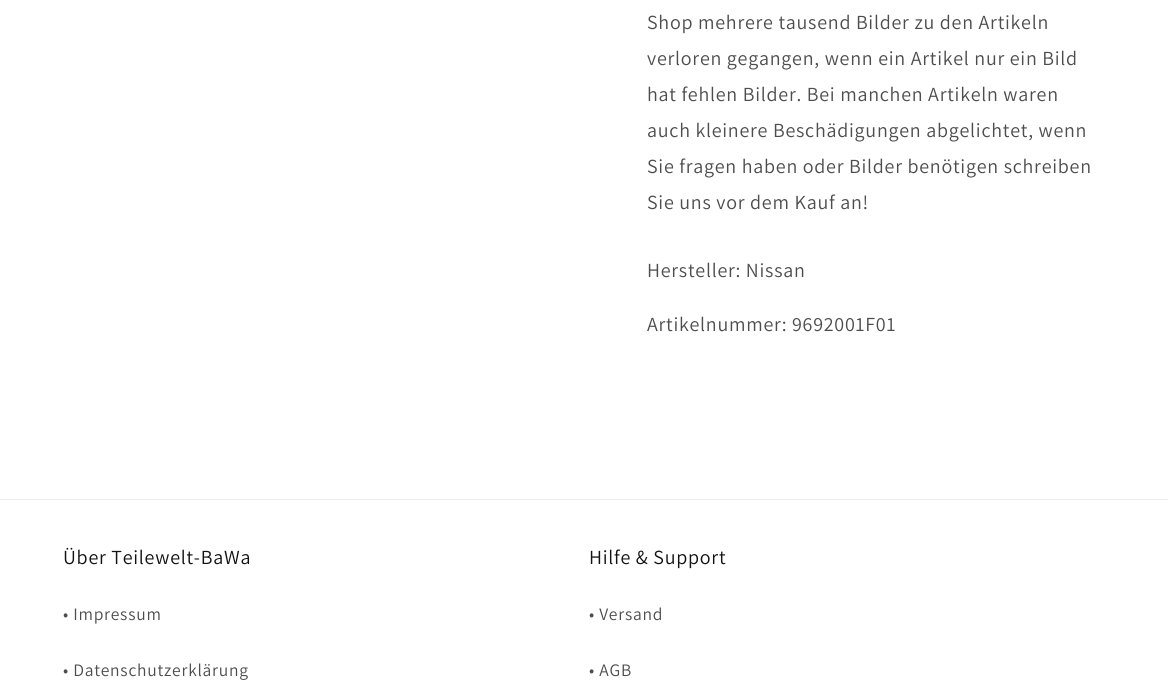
#include <cairo/cairo.h>
#include <math.h>
#include <stddef.h>

typedef struct { double x, y; const char *s; } line_t;
static cairo_t *cr;

static void rgb(unsigned color)
{
	cairo_set_source_rgb(cr, (color >> 16) / 255.0, (color >> 8 & 255) / 255.0, (color & 255) / 255.0);
}

static void tracked(double x, double y, const char *s, double letter, double word)
{
	cairo_move_to(cr, x, y);
	while (*s) {
		char ch[5] = {0};
		int n = 0;
		do ch[n++] = *s++; while ((*s & 0xC0) == 0x80);
		cairo_show_text(cr, ch);
		cairo_rel_move_to(cr, letter + word * (*ch == ' '), 0);
	}
}

int main(void) {
	cairo_surface_t *surface = cairo_image_surface_create(CAIRO_FORMAT_RGB24, 1168, 689);
	cr = cairo_create(surface);
	cairo_font_options_t *options = cairo_font_options_create();
	cairo_font_options_set_hint_metrics(options, CAIRO_HINT_METRICS_OFF);
	cairo_font_options_set_hint_style(options, CAIRO_HINT_STYLE_NONE);
	cairo_set_font_options(cr, options);
	cairo_set_miter_limit(cr, 4);
	rgb(0xffffff);
	cairo_paint(cr);
	rgb(0xececec);
	cairo_rectangle(cr, 0, 499, 1168, 1);
	cairo_fill(cr);
	cairo_select_font_face(cr, "Assistant", CAIRO_FONT_SLANT_NORMAL, CAIRO_FONT_WEIGHT_NORMAL);
	cairo_set_font_size(cr, 20);
	rgb(0x4d4d4d);
	{
		static const line_t items[] = {
			{647, 29, "Shop mehrere tausend Bilder zu den Artikeln"},
			{647, 65, "verloren gegangen, wenn ein Artikel nur ein Bild"},
			{647, 101, "hat fehlen Bilder. Bei manchen Artikeln waren"},
			{647, 137, "auch kleinere Beschädigungen abgelichtet, wenn"},
			{647, 173, "Sie fragen haben oder Bilder benötigen schreiben"},
			{647, 209, "Sie uns vor dem Kauf an!"},
			{647, 277, "Hersteller: Nissan"},
			{647, 331, "Artikelnummer: 9692001F01"},
		};
		for (size_t i = 0; i < sizeof items / sizeof *items; i++) {
			tracked(items[i].x, items[i].y, items[i].s, 0.75, 0);
		}
	}
	rgb(0x121212);
	tracked(63, 564, "Über Teilewelt-BaWa", 0.75, 0);
	cairo_set_font_size(cr, 17.5);
	rgb(0x4d4d4d);
	tracked(63, 620, "• Impressum", 0.75, 0);
	tracked(63, 676, "• Datenschutzerklärung", 0.75, 0);
	cairo_set_font_size(cr, 20);
	rgb(0x121212);
	tracked(589, 564, "Hilfe & Support", 0.75, 0);
	cairo_set_font_size(cr, 17.5);
	rgb(0x4d4d4d);
	tracked(589, 620, "• Versand", 0.75, 0);
	tracked(589, 676, "• AGB", 0.75, 0);
	cairo_surface_write_to_png(surface, "page.png");
	cairo_font_options_destroy(options);
	cairo_destroy(cr);
	cairo_surface_destroy(surface);
	return 0;
}
